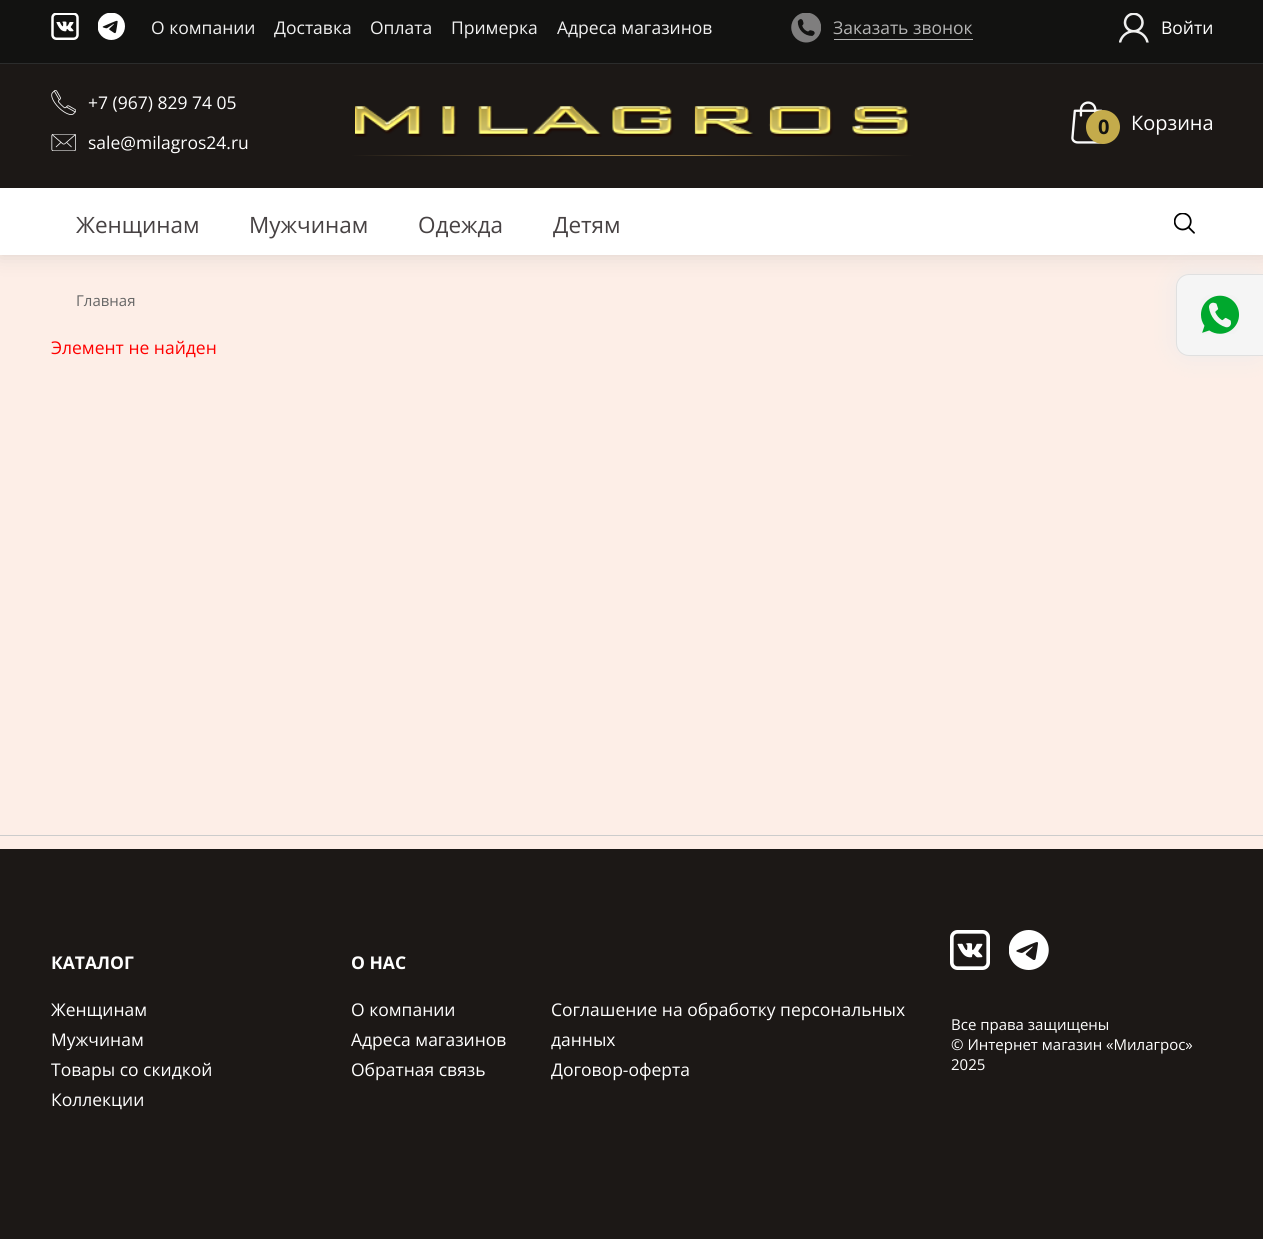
#include <cairo/cairo.h>
#include <math.h>
#include <stddef.h>

typedef struct { double x, y; const char *s; } line_t;
static cairo_t *cr;

static void rgb(unsigned color)
{
	cairo_set_source_rgb(cr, (color >> 16) / 255.0, (color >> 8 & 255) / 255.0, (color & 255) / 255.0);
}

static void rrect(double x, double y, double w, double h, double r)
{
	cairo_new_sub_path(cr);
	cairo_arc(cr, x + w - r, y + h - r, r, 0, M_PI / 2);
	cairo_arc(cr, x + r, y + h - r, r, M_PI / 2, M_PI);
	cairo_arc(cr, x + r, y + r, r, M_PI, 1.5 * M_PI);
	cairo_arc(cr, x + w - r, y + r, r, 1.5 * M_PI, 2 * M_PI);
	cairo_close_path(cr);
}

static void soft_shadow(double x, double y, double w, double h, double r, double blur, double alpha)
{
	cairo_push_group_with_content(cr, CAIRO_CONTENT_ALPHA);
	cairo_set_operator(cr, CAIRO_OPERATOR_SOURCE);
	for (int i = 15; i >= -15 && fmin(w, h) + blur * i / 3 > 0; i -= 2) {
		double e = blur * i / 6;
		cairo_set_source_rgba(cr, 0, 0, 0, alpha * erfc((i - 1) / 8.5) / 2);
		rrect(x - e, y - e, w + 2 * e, h + 2 * e, fmax(0, fmin(r + e + blur * .6, fmin(w, h) / 2 + e)));
		cairo_fill(cr);
	}
	cairo_pattern_t *soft = cairo_pop_group(cr);
	cairo_mask(cr, soft);
	cairo_pattern_destroy(soft);
}

static void image(const char *path, double x, double y, double w, double h)
{
	cairo_surface_t *image = cairo_image_surface_create_from_png(path);
	cairo_save(cr);
	cairo_set_source_surface(cr, image, x, y);
	cairo_rectangle(cr, x, y, w, h);
	cairo_fill(cr);
	cairo_restore(cr);
	cairo_surface_destroy(image);
}

int main(void) {
	cairo_surface_t *surface = cairo_image_surface_create(CAIRO_FORMAT_RGB24, 1263, 1239);
	cr = cairo_create(surface);
	cairo_font_options_t *options = cairo_font_options_create();
	cairo_font_options_set_hint_metrics(options, CAIRO_HINT_METRICS_OFF);
	cairo_font_options_set_hint_style(options, CAIRO_HINT_STYLE_NONE);
	cairo_set_font_options(cr, options);
	cairo_set_miter_limit(cr, 4);
	cairo_pattern_t *gradient;
	rgb(0xfdeee7);
	cairo_paint(cr);
	rgb(0x797979);
	soft_shadow(0, 0, 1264, 255, 0, 10, 0.25);
	rgb(0x121211);
	cairo_rectangle(cr, 0, 0, 1263, 63);
	cairo_fill(cr);
	rgb(0x2b2c2c);
	cairo_rectangle(cr, 0, 63, 1263, 1);
	cairo_fill(cr);
	image("img/1.png", 51, 13, 28, 27);
	image("img/2.png", 98, 13, 27, 27);
	image("img/3.png", 791, 13, 30, 30);
	rgb(0xb4b4b4);
	cairo_rectangle(cr, 834, 39, 139, 1);
	cairo_fill(cr);
	image("img/4.png", 1119, 13, 30, 30);
	rgb(0x1c1816);
	cairo_rectangle(cr, 0, 64, 1263, 124);
	cairo_fill(cr);
	image("img/5.png", 51, 90, 25, 25);
	image("img/6.png", 51, 134, 25, 17);
	image("img/7.png", 355, 106, 555, 31);
	gradient = cairo_pattern_create_linear(351, 156, 914, 156);
	cairo_pattern_add_color_stop_rgba(gradient, 0, 0.11, 0.094, 0.086, 1);
	cairo_pattern_add_color_stop_rgba(gradient, 0.4, 0.596, 0.482, 0.267, 1);
	cairo_pattern_add_color_stop_rgba(gradient, 0.6, 0.596, 0.482, 0.267, 1);
	cairo_pattern_add_color_stop_rgba(gradient, 1, 0.11, 0.094, 0.086, 1);
	cairo_set_source(cr, gradient);
	cairo_pattern_destroy(gradient);
	cairo_rectangle(cr, 351, 155, 563, 1);
	cairo_fill(cr);
	image("img/8.png", 1071, 101, 32, 43);
	rgb(0xc4ab4b);
	cairo_arc(cr, 1103, 127, 17, 0, 2 * M_PI);
	cairo_fill(cr);
	rgb(0xffffff);
	cairo_rectangle(cr, 0, 188, 1263, 67);
	cairo_fill(cr);
	image("img/9.png", 1174, 213, 21, 21);
	rgb(0xececec);
	soft_shadow(1176, 274, 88, 82, 13, 12, 1);
	rgb(0xf5f5f5);
	cairo_new_path(cr);
	cairo_move_to(cr, 1189, 274.5);
	cairo_line_to(cr, 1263.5, 274.5);
	cairo_line_to(cr, 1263.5, 355.5);
	cairo_line_to(cr, 1189, 355.5);
	cairo_curve_to(cr, 1182, 355.5, 1176.5, 350, 1176.5, 343);
	cairo_line_to(cr, 1176.5, 287);
	cairo_curve_to(cr, 1176.5, 280, 1182, 274.5, 1189, 274.5);
	cairo_close_path(cr);
	cairo_fill_preserve(cr);
	rgb(0xe0e0e0);
	cairo_set_line_width(cr, 1);
	cairo_stroke(cr);
	image("img/10.png", 1200, 295, 40, 39);
	rgb(0xcccccc);
	cairo_rectangle(cr, 0, 835, 1263, 1);
	cairo_fill(cr);
	rgb(0x1c1816);
	cairo_rectangle(cr, 0, 849, 1263, 390);
	cairo_fill(cr);
	image("img/11.png", 950, 930, 40, 40);
	image("img/12.png", 1009, 930, 40, 40);
	cairo_select_font_face(cr, "Open Sans", CAIRO_FONT_SLANT_NORMAL, CAIRO_FONT_WEIGHT_NORMAL);
	cairo_set_font_size(cr, 17.5);
	rgb(0xf0f0f0);
	{
		static const line_t items[] = {
			{151, 34, "О компании"},
			{274, 34, "Доставка"},
			{370, 34, "Оплата"},
			{451, 34, "Примерка"},
			{557, 34, "Адреса магазинов"},
		};
		for (size_t i = 0; i < sizeof items / sizeof *items; i++) {
			cairo_move_to(cr, items[i].x, items[i].y);
			cairo_show_text(cr, items[i].s);
		}
	}
	rgb(0xb4b4b4);
	cairo_move_to(cr, 833, 34);
	cairo_show_text(cr, "Заказать звонок");
	rgb(0xffffff);
	{
		static const line_t items[] = {
			{1161, 34, "Войти"},
			{88, 109, "+7 (967) 829 74 05"},
			{88, 149, "sale@milagros24.ru"},
		};
		for (size_t i = 0; i < sizeof items / sizeof *items; i++) {
			cairo_move_to(cr, items[i].x, items[i].y);
			cairo_show_text(cr, items[i].s);
		}
	}
	cairo_select_font_face(cr, "Open Sans", CAIRO_FONT_SLANT_NORMAL, CAIRO_FONT_WEIGHT_BOLD);
	cairo_set_font_size(cr, 20);
	rgb(0x121211);
	cairo_move_to(cr, 1098, 134);
	cairo_show_text(cr, "0");
	cairo_select_font_face(cr, "Open Sans", CAIRO_FONT_SLANT_NORMAL, CAIRO_FONT_WEIGHT_NORMAL);
	rgb(0xffffff);
	cairo_move_to(cr, 1131, 130);
	cairo_show_text(cr, "Корзина");
	cairo_set_font_size(cr, 22.5);
	rgb(0x474243);
	{
		static const line_t items[] = {
			{76, 233, "Женщинам"},
			{249, 233, "Мужчинам"},
			{418, 233, "Одежда"},
			{553, 233, "Детям"},
		};
		for (size_t i = 0; i < sizeof items / sizeof *items; i++) {
			cairo_move_to(cr, items[i].x, items[i].y);
			cairo_show_text(cr, items[i].s);
		}
	}
	cairo_set_font_size(cr, 15);
	rgb(0x666666);
	cairo_move_to(cr, 76, 306);
	cairo_show_text(cr, "Главная");
	cairo_set_font_size(cr, 17.5);
	rgb(0xff0000);
	cairo_move_to(cr, 51, 354);
	cairo_show_text(cr, "Элемент не найден");
	cairo_select_font_face(cr, "Open Sans", CAIRO_FONT_SLANT_NORMAL, CAIRO_FONT_WEIGHT_BOLD);
	rgb(0xffffff);
	cairo_move_to(cr, 51, 969);
	cairo_show_text(cr, "КАТАЛОГ");
	cairo_select_font_face(cr, "Open Sans", CAIRO_FONT_SLANT_NORMAL, CAIRO_FONT_WEIGHT_NORMAL);
	{
		static const line_t items[] = {
			{51, 1016, "Женщинам"},
			{51, 1046, "Мужчинам"},
			{51, 1076, "Товары со скидкой"},
			{51, 1106, "Коллекции"},
		};
		for (size_t i = 0; i < sizeof items / sizeof *items; i++) {
			cairo_move_to(cr, items[i].x, items[i].y);
			cairo_show_text(cr, items[i].s);
		}
	}
	cairo_select_font_face(cr, "Open Sans", CAIRO_FONT_SLANT_NORMAL, CAIRO_FONT_WEIGHT_BOLD);
	cairo_move_to(cr, 351, 969);
	cairo_show_text(cr, "О НАС");
	cairo_select_font_face(cr, "Open Sans", CAIRO_FONT_SLANT_NORMAL, CAIRO_FONT_WEIGHT_NORMAL);
	{
		static const line_t items[] = {
			{351, 1016, "О компании"},
			{351, 1046, "Адреса магазинов"},
			{351, 1076, "Обратная связь"},
			{551, 1016, "Соглашение на обработку персональных"},
			{551, 1046, "данных"},
			{551, 1076, "Договор-оферта"},
		};
		for (size_t i = 0; i < sizeof items / sizeof *items; i++) {
			cairo_move_to(cr, items[i].x, items[i].y);
			cairo_show_text(cr, items[i].s);
		}
	}
	cairo_set_font_size(cr, 15);
	{
		static const line_t items[] = {
			{951, 1030, "Все права защищены"},
			{951, 1050, "© Интернет магазин «Милагрос»"},
			{951, 1070, "2025"},
		};
		for (size_t i = 0; i < sizeof items / sizeof *items; i++) {
			cairo_move_to(cr, items[i].x, items[i].y);
			cairo_show_text(cr, items[i].s);
		}
	}
	cairo_surface_write_to_png(surface, "page.png");
	cairo_font_options_destroy(options);
	cairo_destroy(cr);
	cairo_surface_destroy(surface);
	return 0;
}
